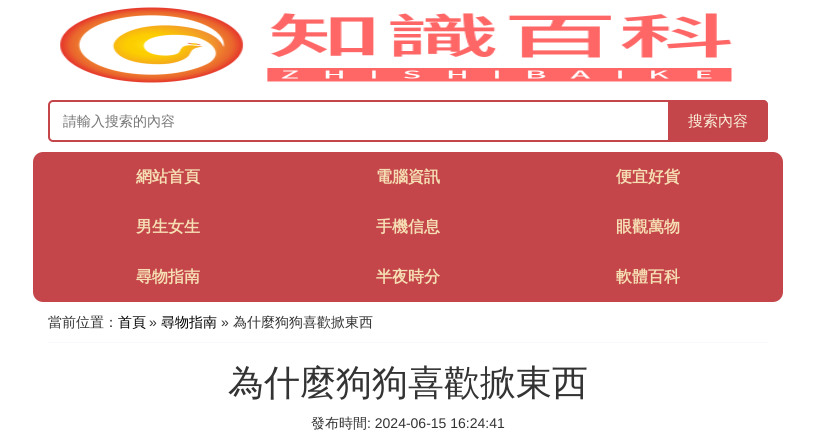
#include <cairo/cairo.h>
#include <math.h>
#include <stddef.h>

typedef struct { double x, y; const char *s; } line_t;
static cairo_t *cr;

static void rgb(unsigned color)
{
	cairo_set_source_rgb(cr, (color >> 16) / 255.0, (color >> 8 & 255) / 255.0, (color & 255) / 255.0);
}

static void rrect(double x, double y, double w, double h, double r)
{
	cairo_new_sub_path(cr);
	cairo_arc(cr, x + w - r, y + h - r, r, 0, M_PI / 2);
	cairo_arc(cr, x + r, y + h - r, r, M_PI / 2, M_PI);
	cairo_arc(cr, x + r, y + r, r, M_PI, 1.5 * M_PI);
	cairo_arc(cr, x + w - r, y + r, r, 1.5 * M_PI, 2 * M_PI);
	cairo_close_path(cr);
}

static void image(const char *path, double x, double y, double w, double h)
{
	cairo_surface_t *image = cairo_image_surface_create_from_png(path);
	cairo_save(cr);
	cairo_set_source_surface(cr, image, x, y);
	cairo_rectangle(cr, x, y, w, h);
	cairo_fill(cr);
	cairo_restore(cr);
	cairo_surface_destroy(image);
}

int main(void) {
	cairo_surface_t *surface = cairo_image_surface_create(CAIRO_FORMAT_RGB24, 815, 447);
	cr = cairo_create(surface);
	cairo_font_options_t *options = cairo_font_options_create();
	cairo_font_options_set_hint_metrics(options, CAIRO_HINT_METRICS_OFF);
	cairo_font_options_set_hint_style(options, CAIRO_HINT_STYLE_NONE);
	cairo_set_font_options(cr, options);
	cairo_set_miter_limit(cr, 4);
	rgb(0xffffff);
	cairo_paint(cr);
	image("img/1.png", 60, 7, 672, 76);
	rrect(49, 101, 718, 40, 4);
	rgb(0xc5464a);
	cairo_stroke(cr);
	cairo_new_path(cr);
	cairo_move_to(cr, 668, 100);
	cairo_line_to(cr, 763, 100);
	cairo_curve_to(cr, 766, 100, 768, 102, 768, 105);
	cairo_line_to(cr, 768, 137);
	cairo_curve_to(cr, 768, 140, 766, 142, 763, 142);
	cairo_line_to(cr, 668, 142);
	cairo_close_path(cr);
	cairo_fill(cr);
	rrect(33, 152, 750, 150, 10);
	cairo_fill(cr);
	rgb(0xf8f8ff);
	cairo_rectangle(cr, 48, 342, 720, 1);
	cairo_fill(cr);
	cairo_save(cr);
	cairo_rectangle(cr, 63, 113, 701, 18);
	cairo_clip(cr);
	cairo_select_font_face(cr, "WenQuanYi Zen Hei Medium", CAIRO_FONT_SLANT_NORMAL, CAIRO_FONT_WEIGHT_NORMAL);
	cairo_set_font_size(cr, 14);
	rgb(0x757575);
	cairo_move_to(cr, 63, 126);
	cairo_show_text(cr, "請輸入搜索的內容");
	cairo_restore(cr);
	cairo_select_font_face(cr, "WenQuanYi Zen Hei Medium", CAIRO_FONT_SLANT_NORMAL, CAIRO_FONT_WEIGHT_NORMAL);
	cairo_set_font_size(cr, 15);
	rgb(0xf9f0da);
	cairo_move_to(cr, 688, 126);
	cairo_show_text(cr, "搜索內容");
	cairo_select_font_face(cr, "WenQuanYi Zen Hei", CAIRO_FONT_SLANT_NORMAL, CAIRO_FONT_WEIGHT_BOLD);
	cairo_set_font_size(cr, 16);
	rgb(0xf5deb3);
	{
		static const line_t items[] = {
			{136, 182, "網站首頁"},
			{376, 182, "電腦資訊"},
			{616, 182, "便宜好貨"},
			{136, 232, "男生女生"},
			{376, 232, "手機信息"},
			{616, 232, "眼觀萬物"},
			{136, 282, "尋物指南"},
			{376, 282, "半夜時分"},
			{616, 282, "軟體百科"},
		};
		for (size_t i = 0; i < sizeof items / sizeof *items; i++) {
			cairo_move_to(cr, items[i].x, items[i].y);
			cairo_show_text(cr, items[i].s);
		}
	}
	cairo_select_font_face(cr, "WenQuanYi Zen Hei Medium", CAIRO_FONT_SLANT_NORMAL, CAIRO_FONT_WEIGHT_NORMAL);
	cairo_set_font_size(cr, 14);
	rgb(0x333333);
	cairo_move_to(cr, 48, 327);
	cairo_show_text(cr, "當前位置：");
	rgb(0x000000);
	cairo_move_to(cr, 118, 327);
	cairo_show_text(cr, "首頁");
	cairo_select_font_face(cr, "Liberation Sans", CAIRO_FONT_SLANT_NORMAL, CAIRO_FONT_WEIGHT_NORMAL);
	rgb(0x333333);
	cairo_move_to(cr, 149, 327);
	cairo_show_text(cr, "»");
	cairo_select_font_face(cr, "WenQuanYi Zen Hei Medium", CAIRO_FONT_SLANT_NORMAL, CAIRO_FONT_WEIGHT_NORMAL);
	rgb(0x000000);
	cairo_move_to(cr, 161, 327);
	cairo_show_text(cr, "尋物指南");
	cairo_select_font_face(cr, "Liberation Sans", CAIRO_FONT_SLANT_NORMAL, CAIRO_FONT_WEIGHT_NORMAL);
	rgb(0x333333);
	cairo_move_to(cr, 221, 327);
	cairo_show_text(cr, "»");
	cairo_select_font_face(cr, "WenQuanYi Zen Hei Medium", CAIRO_FONT_SLANT_NORMAL, CAIRO_FONT_WEIGHT_NORMAL);
	cairo_move_to(cr, 233, 327);
	cairo_show_text(cr, "為什麼狗狗喜歡掀東西");
	cairo_set_font_size(cr, 36);
	cairo_move_to(cr, 228, 395);
	cairo_show_text(cr, "為什麼狗狗喜歡掀東西");
	cairo_set_font_size(cr, 14);
	cairo_move_to(cr, 311, 428);
	cairo_show_text(cr, "發布時間");
	cairo_select_font_face(cr, "Liberation Sans", CAIRO_FONT_SLANT_NORMAL, CAIRO_FONT_WEIGHT_NORMAL);
	cairo_move_to(cr, 367, 428);
	cairo_show_text(cr, ": 2024-06-15 16:24:41");
	cairo_surface_write_to_png(surface, "page.png");
	cairo_font_options_destroy(options);
	cairo_destroy(cr);
	cairo_surface_destroy(surface);
	return 0;
}
